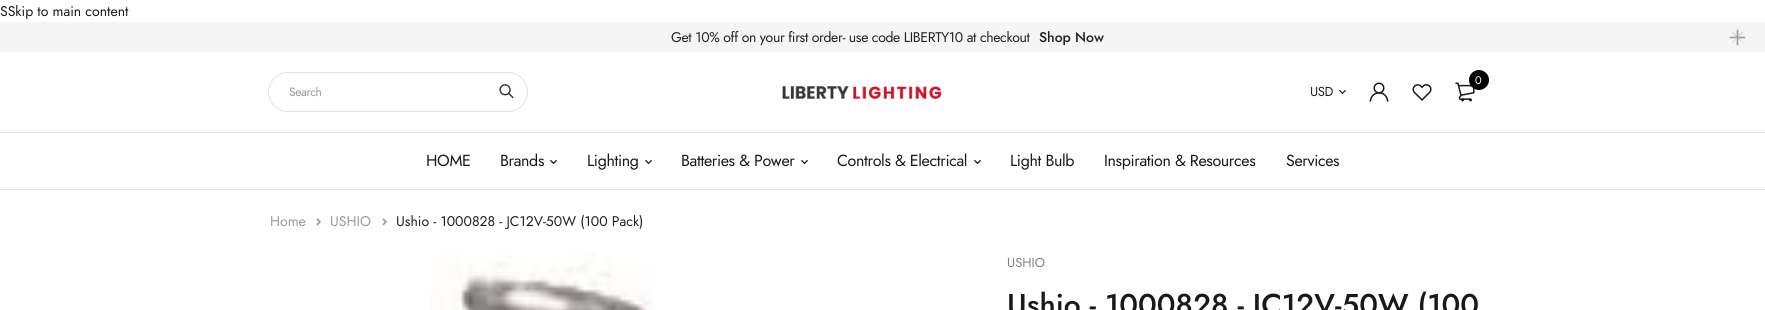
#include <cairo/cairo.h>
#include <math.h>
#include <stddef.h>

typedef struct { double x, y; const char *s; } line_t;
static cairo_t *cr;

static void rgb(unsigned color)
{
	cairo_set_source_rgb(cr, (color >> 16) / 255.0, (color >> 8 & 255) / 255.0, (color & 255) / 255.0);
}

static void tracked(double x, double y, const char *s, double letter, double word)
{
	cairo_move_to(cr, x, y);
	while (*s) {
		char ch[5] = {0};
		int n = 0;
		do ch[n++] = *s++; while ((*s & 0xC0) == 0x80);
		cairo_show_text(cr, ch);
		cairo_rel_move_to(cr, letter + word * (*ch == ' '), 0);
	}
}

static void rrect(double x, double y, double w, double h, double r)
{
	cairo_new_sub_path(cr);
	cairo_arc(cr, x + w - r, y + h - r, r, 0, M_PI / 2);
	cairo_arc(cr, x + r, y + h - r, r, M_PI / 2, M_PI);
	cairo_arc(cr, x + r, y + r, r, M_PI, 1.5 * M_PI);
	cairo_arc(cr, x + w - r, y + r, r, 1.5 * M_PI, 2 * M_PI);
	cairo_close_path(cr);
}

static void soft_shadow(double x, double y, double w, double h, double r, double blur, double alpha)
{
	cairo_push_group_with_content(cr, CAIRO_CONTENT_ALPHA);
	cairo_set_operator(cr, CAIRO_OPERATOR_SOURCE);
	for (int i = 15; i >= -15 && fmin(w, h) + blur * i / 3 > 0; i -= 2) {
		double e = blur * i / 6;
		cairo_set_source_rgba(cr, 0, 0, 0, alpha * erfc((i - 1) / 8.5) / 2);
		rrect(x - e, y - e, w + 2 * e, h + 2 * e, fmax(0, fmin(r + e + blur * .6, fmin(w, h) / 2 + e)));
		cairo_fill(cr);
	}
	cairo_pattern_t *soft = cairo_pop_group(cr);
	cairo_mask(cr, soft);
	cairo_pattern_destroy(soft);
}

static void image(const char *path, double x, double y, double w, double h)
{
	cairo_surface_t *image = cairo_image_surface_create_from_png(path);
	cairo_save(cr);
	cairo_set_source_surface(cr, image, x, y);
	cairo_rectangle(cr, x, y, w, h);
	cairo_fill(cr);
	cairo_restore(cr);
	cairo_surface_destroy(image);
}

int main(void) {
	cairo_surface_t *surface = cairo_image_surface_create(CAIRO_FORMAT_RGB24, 1765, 310);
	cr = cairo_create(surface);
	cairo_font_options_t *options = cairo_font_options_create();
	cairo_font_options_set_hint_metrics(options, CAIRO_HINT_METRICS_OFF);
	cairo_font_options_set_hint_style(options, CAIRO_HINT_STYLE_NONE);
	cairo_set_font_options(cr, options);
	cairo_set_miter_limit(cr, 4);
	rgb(0xffffff);
	cairo_paint(cr);
	rgb(0xe5e5e5);
	cairo_rectangle(cr, 0, 189, 1765, 1);
	cairo_fill(cr);
	rgb(0xf5f5f5);
	cairo_rectangle(cr, 0, 22, 1765, 30);
	cairo_fill(cr);
	rgb(0x000000);
	soft_shadow(1730, 37, 15, 1, 0, 0.5, 0.5);
	rgb(0xcccccc);
	cairo_new_path(cr);
	cairo_move_to(cr, 1732.5, 31.5);
	cairo_line_to(cr, 1743, 42.5);
	cairo_line_to(cr, 1742.5, 43);
	cairo_line_to(cr, 1732, 32.5);
	cairo_close_path(cr);
	cairo_fill(cr);
	rgb(0x000000);
	soft_shadow(1737, 30, 1, 15, 0, 0.5, 0.5);
	rgb(0xcccccc);
	cairo_new_path(cr);
	cairo_move_to(cr, 1742.5, 31.5);
	cairo_line_to(cr, 1743, 32.5);
	cairo_line_to(cr, 1732.5, 43);
	cairo_line_to(cr, 1732, 42.5);
	cairo_close_path(cr);
	cairo_fill(cr);
	rrect(268.5, 72.5, 259, 39, 19.5);
	rgb(0xe1e1e1);
	cairo_set_line_width(cr, 1);
	cairo_stroke(cr);
	image("img/1.png", 499, 84, 15, 15);
	image("img/2.png", 782, 86, 160, 13);
	image("img/3.png", 1455, 82, 20, 20);
	rgb(0x000000);
	cairo_arc(cr, 1479, 80, 10, 0, 2 * M_PI);
	cairo_fill(cr);
	image("img/4.png", 1339, 90, 7, 4);
	image("img/5.png", 1369, 82, 20, 20);
	image("img/6.png", 1412, 84, 20, 17);
	rgb(0xe1e1e1);
	cairo_rectangle(cr, 0, 132, 1765, 1);
	cairo_fill(cr);
	image("img/7.png", 550, 160, 7, 4);
	image("img/7.png", 645, 160, 7, 4);
	image("img/7.png", 801, 160, 7, 4);
	image("img/7.png", 974, 160, 7, 4);
	image("img/8.png", 316, 218, 5, 8);
	image("img/8.png", 382, 218, 5, 8);
	image("img/9.png", 431, 253, 222, 57);
	cairo_select_font_face(cr, "Jost", CAIRO_FONT_SLANT_NORMAL, CAIRO_FONT_WEIGHT_NORMAL);
	cairo_set_font_size(cr, 14);
	rgb(0x191919);
	cairo_move_to(cr, 0, 16);
	cairo_show_text(cr, "SSkip to main content");
	rgb(0x222222);
	tracked(671, 42, "Get 10% off on your first order- use code LIBERTY10 at checkout", -0.35, 0);
	cairo_select_font_face(cr, "Jost Medium", CAIRO_FONT_SLANT_NORMAL, CAIRO_FONT_WEIGHT_NORMAL);
	cairo_move_to(cr, 1039, 42);
	cairo_show_text(cr, "Shop Now");
	cairo_select_font_face(cr, "Jost", CAIRO_FONT_SLANT_NORMAL, CAIRO_FONT_WEIGHT_NORMAL);
	cairo_set_font_size(cr, 12);
	rgb(0x999999);
	tracked(289, 96, "Search", -0.35, 0);
	cairo_set_font_size(cr, 11);
	rgb(0xffffff);
	tracked(1475, 84, "0", -0.35, 0);
	cairo_set_font_size(cr, 13);
	rgb(0x222222);
	tracked(1310, 96, "USD", -0.35, 0);
	cairo_set_font_size(cr, 16);
	rgb(0x191919);
	{
		static const line_t items[] = {
			{426, 166, "HOME"},
			{500, 166, "Brands"},
			{587, 166, "Lighting"},
			{681, 166, "Batteries & Power"},
			{837, 166, "Controls & Electrical"},
			{1010, 166, "Light Bulb"},
			{1104, 166, "Inspiration & Resources"},
			{1286, 166, "Services"},
		};
		for (size_t i = 0; i < sizeof items / sizeof *items; i++) {
			tracked(items[i].x, items[i].y, items[i].s, -0.35, 0);
		}
	}
	cairo_set_font_size(cr, 14);
	rgb(0x999999);
	cairo_move_to(cr, 270, 226);
	cairo_show_text(cr, "Home");
	cairo_move_to(cr, 330, 226);
	cairo_show_text(cr, "USHIO");
	rgb(0x222222);
	cairo_move_to(cr, 396, 226);
	cairo_show_text(cr, "Ushio - 1000828 - JC12V-50W (100 Pack)");
	cairo_set_font_size(cr, 13);
	rgb(0x808080);
	cairo_move_to(cr, 1007, 267);
	cairo_show_text(cr, "USHIO");
	cairo_select_font_face(cr, "Jost Medium", CAIRO_FONT_SLANT_NORMAL, CAIRO_FONT_WEIGHT_NORMAL);
	cairo_set_font_size(cr, 30);
	rgb(0x191919);
	cairo_move_to(cr, 1007, 315);
	cairo_show_text(cr, "Ushio - 1000828 - JC12V-50W (100");
	cairo_surface_write_to_png(surface, "page.png");
	cairo_font_options_destroy(options);
	cairo_destroy(cr);
	cairo_surface_destroy(surface);
	return 0;
}
